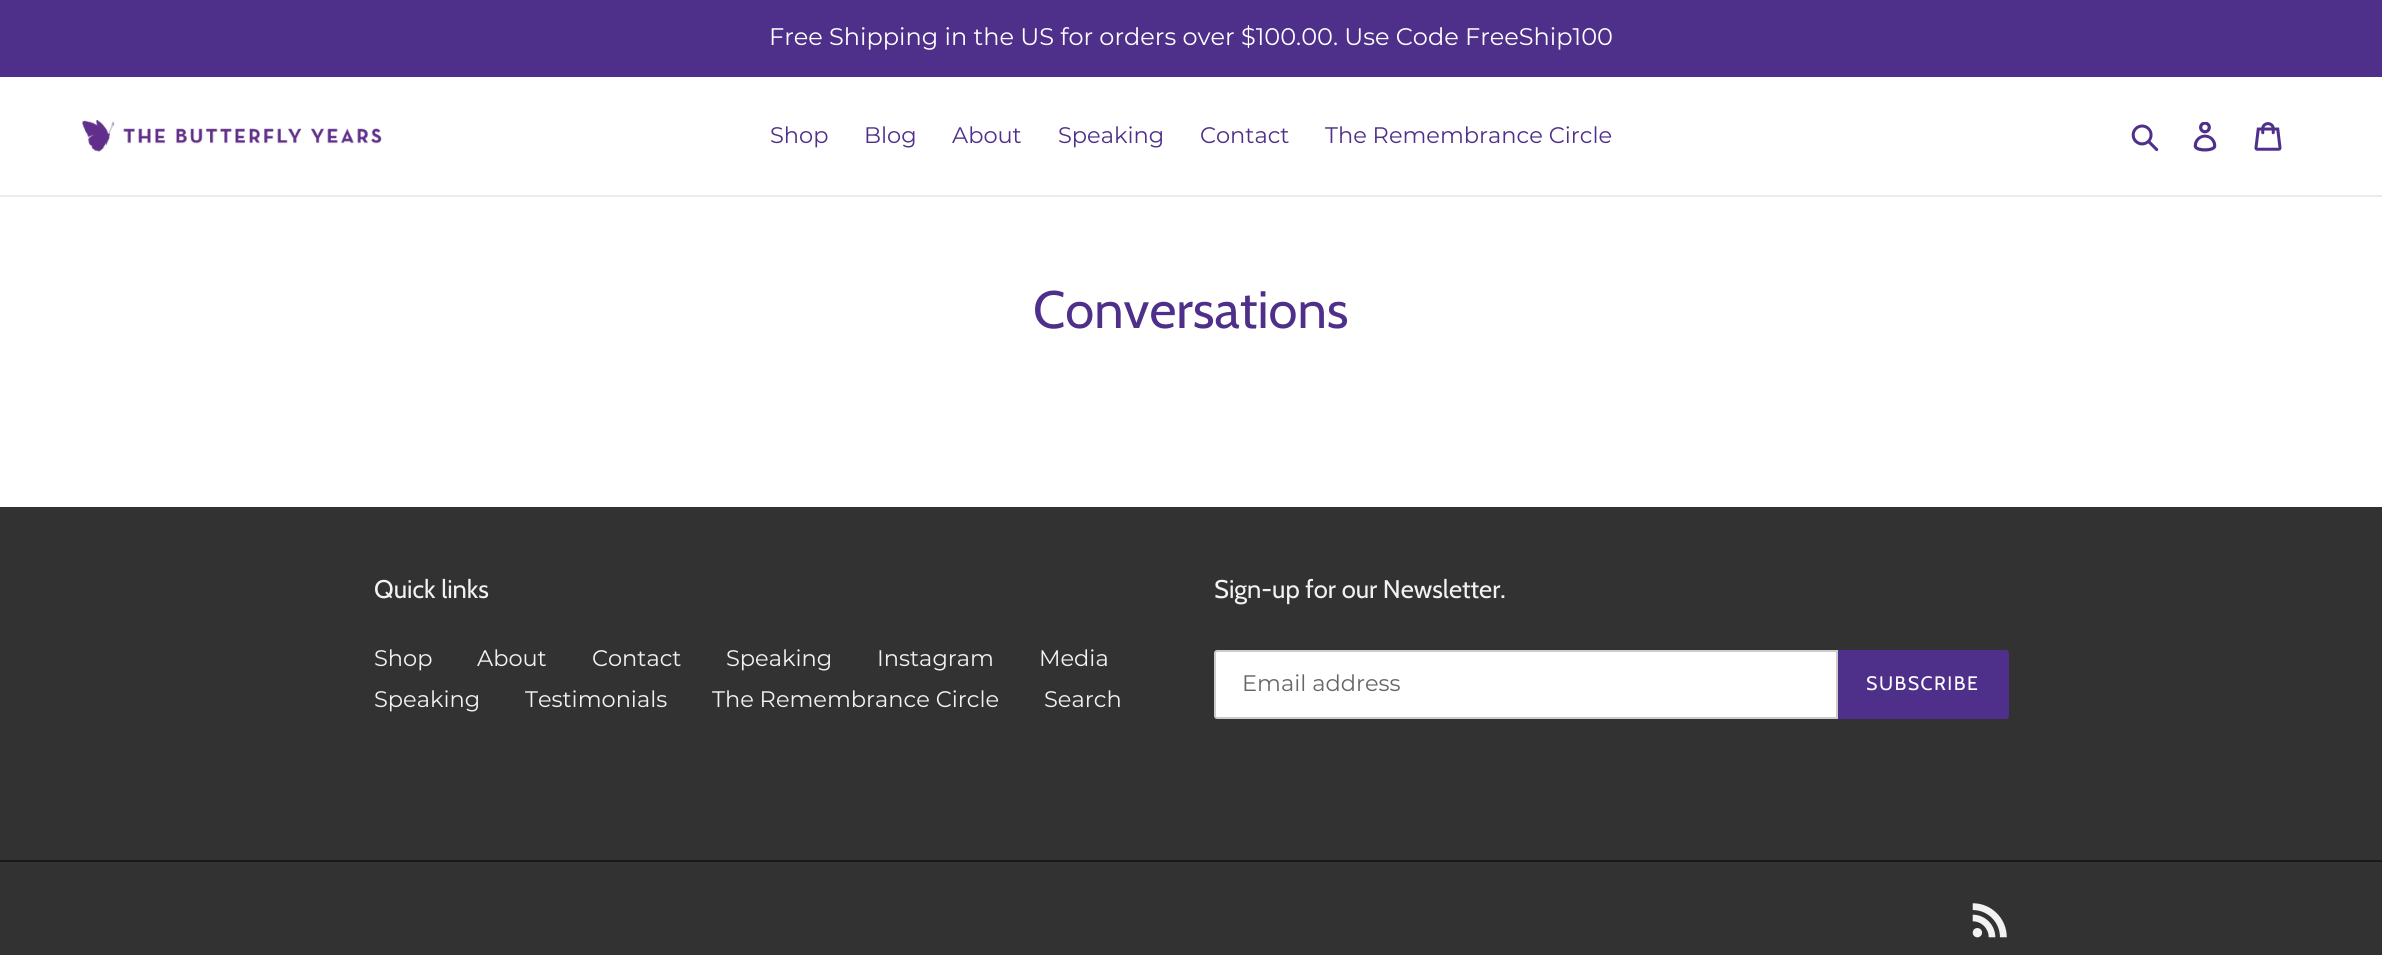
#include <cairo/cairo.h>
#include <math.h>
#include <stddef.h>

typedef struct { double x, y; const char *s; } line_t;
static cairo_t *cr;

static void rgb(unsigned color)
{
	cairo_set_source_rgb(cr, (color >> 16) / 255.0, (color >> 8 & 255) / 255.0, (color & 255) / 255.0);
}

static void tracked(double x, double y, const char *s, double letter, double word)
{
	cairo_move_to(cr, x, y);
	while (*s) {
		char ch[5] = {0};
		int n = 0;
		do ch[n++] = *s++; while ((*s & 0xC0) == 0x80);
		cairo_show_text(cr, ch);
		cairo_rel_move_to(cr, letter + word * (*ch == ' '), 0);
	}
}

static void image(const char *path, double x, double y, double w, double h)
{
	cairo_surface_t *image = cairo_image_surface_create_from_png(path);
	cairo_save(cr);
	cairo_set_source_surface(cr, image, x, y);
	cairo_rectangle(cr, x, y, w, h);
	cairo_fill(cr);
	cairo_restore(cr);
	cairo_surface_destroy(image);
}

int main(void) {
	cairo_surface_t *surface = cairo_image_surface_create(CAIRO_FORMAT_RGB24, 2382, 955);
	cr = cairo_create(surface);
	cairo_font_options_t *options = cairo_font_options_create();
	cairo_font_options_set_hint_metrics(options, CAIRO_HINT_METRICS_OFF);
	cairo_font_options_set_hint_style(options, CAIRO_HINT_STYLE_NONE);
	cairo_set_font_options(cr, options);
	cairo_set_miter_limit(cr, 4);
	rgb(0xffffff);
	cairo_paint(cr);
	rgb(0x4e2f8a);
	cairo_rectangle(cr, 0, 0, 2382, 77);
	cairo_fill(cr);
	rgb(0xebebeb);
	cairo_rectangle(cr, 0, 195, 2382, 2);
	cairo_fill(cr);
	image("img/1.png", 82, 120, 300, 32);
	image("img/2.png", 2131, 124, 28, 28);
	image("img/3.png", 2193, 122, 24, 30);
	image("img/4.png", 2254, 122, 28, 29);
	rgb(0x333232);
	cairo_rectangle(cr, 0, 507, 2382, 448);
	cairo_fill(cr);
	rgb(0xffffff);
	cairo_new_path(cr);
	cairo_move_to(cr, 1217, 651);
	cairo_line_to(cr, 1837, 651);
	cairo_line_to(cr, 1837, 718);
	cairo_line_to(cr, 1217, 718);
	cairo_curve_to(cr, 1216, 718, 1215, 717, 1215, 716);
	cairo_line_to(cr, 1215, 653);
	cairo_curve_to(cr, 1215, 652, 1216, 651, 1217, 651);
	cairo_close_path(cr);
	cairo_fill_preserve(cr);
	rgb(0xcccccc);
	cairo_stroke(cr);
	rgb(0x4e2f8a);
	cairo_new_path(cr);
	cairo_move_to(cr, 1838, 650);
	cairo_line_to(cr, 2006, 650);
	cairo_curve_to(cr, 2007.5, 650, 2009, 651.5, 2009, 653);
	cairo_line_to(cr, 2009, 716);
	cairo_curve_to(cr, 2009, 717.5, 2007.5, 719, 2006, 719);
	cairo_line_to(cr, 1838, 719);
	cairo_close_path(cr);
	cairo_fill(cr);
	rgb(0x191919);
	cairo_rectangle(cr, 0, 860, 2382, 2);
	cairo_fill(cr);
	image("img/5.png", 1972, 903, 35, 35);
	cairo_select_font_face(cr, "Montserrat", CAIRO_FONT_SLANT_NORMAL, CAIRO_FONT_WEIGHT_NORMAL);
	cairo_set_font_size(cr, 24);
	rgb(0xffffff);
	cairo_move_to(cr, 769, 45);
	cairo_show_text(cr, "Free Shipping in the US for orders over $100.00. Use Code FreeShip100");
	cairo_set_font_size(cr, 22.5);
	rgb(0x4e2f8a);
	{
		static const line_t items[] = {
			{770, 143, "Shop"},
			{864, 143, "Blog"},
			{952, 143, "About"},
			{1058, 143, "Speaking"},
			{1200, 143, "Contact"},
			{1325, 143, "The Remembrance Circle"},
		};
		for (size_t i = 0; i < sizeof items / sizeof *items; i++) {
			cairo_move_to(cr, items[i].x, items[i].y);
			cairo_show_text(cr, items[i].s);
		}
	}
	cairo_select_font_face(cr, "Cabin", CAIRO_FONT_SLANT_NORMAL, CAIRO_FONT_WEIGHT_NORMAL);
	cairo_set_font_size(cr, 52.5);
	cairo_move_to(cr, 1033, 328);
	cairo_show_text(cr, "Conversations");
	cairo_set_font_size(cr, 25.5);
	rgb(0xf2f2f2);
	cairo_move_to(cr, 374, 598);
	cairo_show_text(cr, "Quick links");
	cairo_select_font_face(cr, "Montserrat", CAIRO_FONT_SLANT_NORMAL, CAIRO_FONT_WEIGHT_NORMAL);
	cairo_set_font_size(cr, 22.5);
	{
		static const line_t items[] = {
			{374, 666, "Shop"},
			{477, 666, "About"},
			{592, 666, "Contact"},
			{726, 666, "Speaking"},
			{877, 666, "Instagram"},
			{1039, 666, "Media"},
			{374, 707, "Speaking"},
			{525, 707, "Testimonials"},
			{712, 707, "The Remembrance Circle"},
			{1044, 707, "Search"},
		};
		for (size_t i = 0; i < sizeof items / sizeof *items; i++) {
			cairo_move_to(cr, items[i].x, items[i].y);
			cairo_show_text(cr, items[i].s);
		}
	}
	cairo_select_font_face(cr, "Cabin", CAIRO_FONT_SLANT_NORMAL, CAIRO_FONT_WEIGHT_NORMAL);
	cairo_set_font_size(cr, 25.5);
	cairo_move_to(cr, 1214, 598);
	cairo_show_text(cr, "Sign-up for our Newsletter.");
	cairo_select_font_face(cr, "Montserrat", CAIRO_FONT_SLANT_NORMAL, CAIRO_FONT_WEIGHT_NORMAL);
	cairo_set_font_size(cr, 22.5);
	rgb(0x666666);
	cairo_move_to(cr, 1242, 691);
	cairo_show_text(cr, "Email address");
	cairo_select_font_face(cr, "Cabin", CAIRO_FONT_SLANT_NORMAL, CAIRO_FONT_WEIGHT_NORMAL);
	cairo_set_font_size(cr, 19.5);
	rgb(0xffffff);
	tracked(1866, 690, "SUBSCRIBE", 1.5, 0);
	cairo_surface_write_to_png(surface, "page.png");
	cairo_font_options_destroy(options);
	cairo_destroy(cr);
	cairo_surface_destroy(surface);
	return 0;
}
